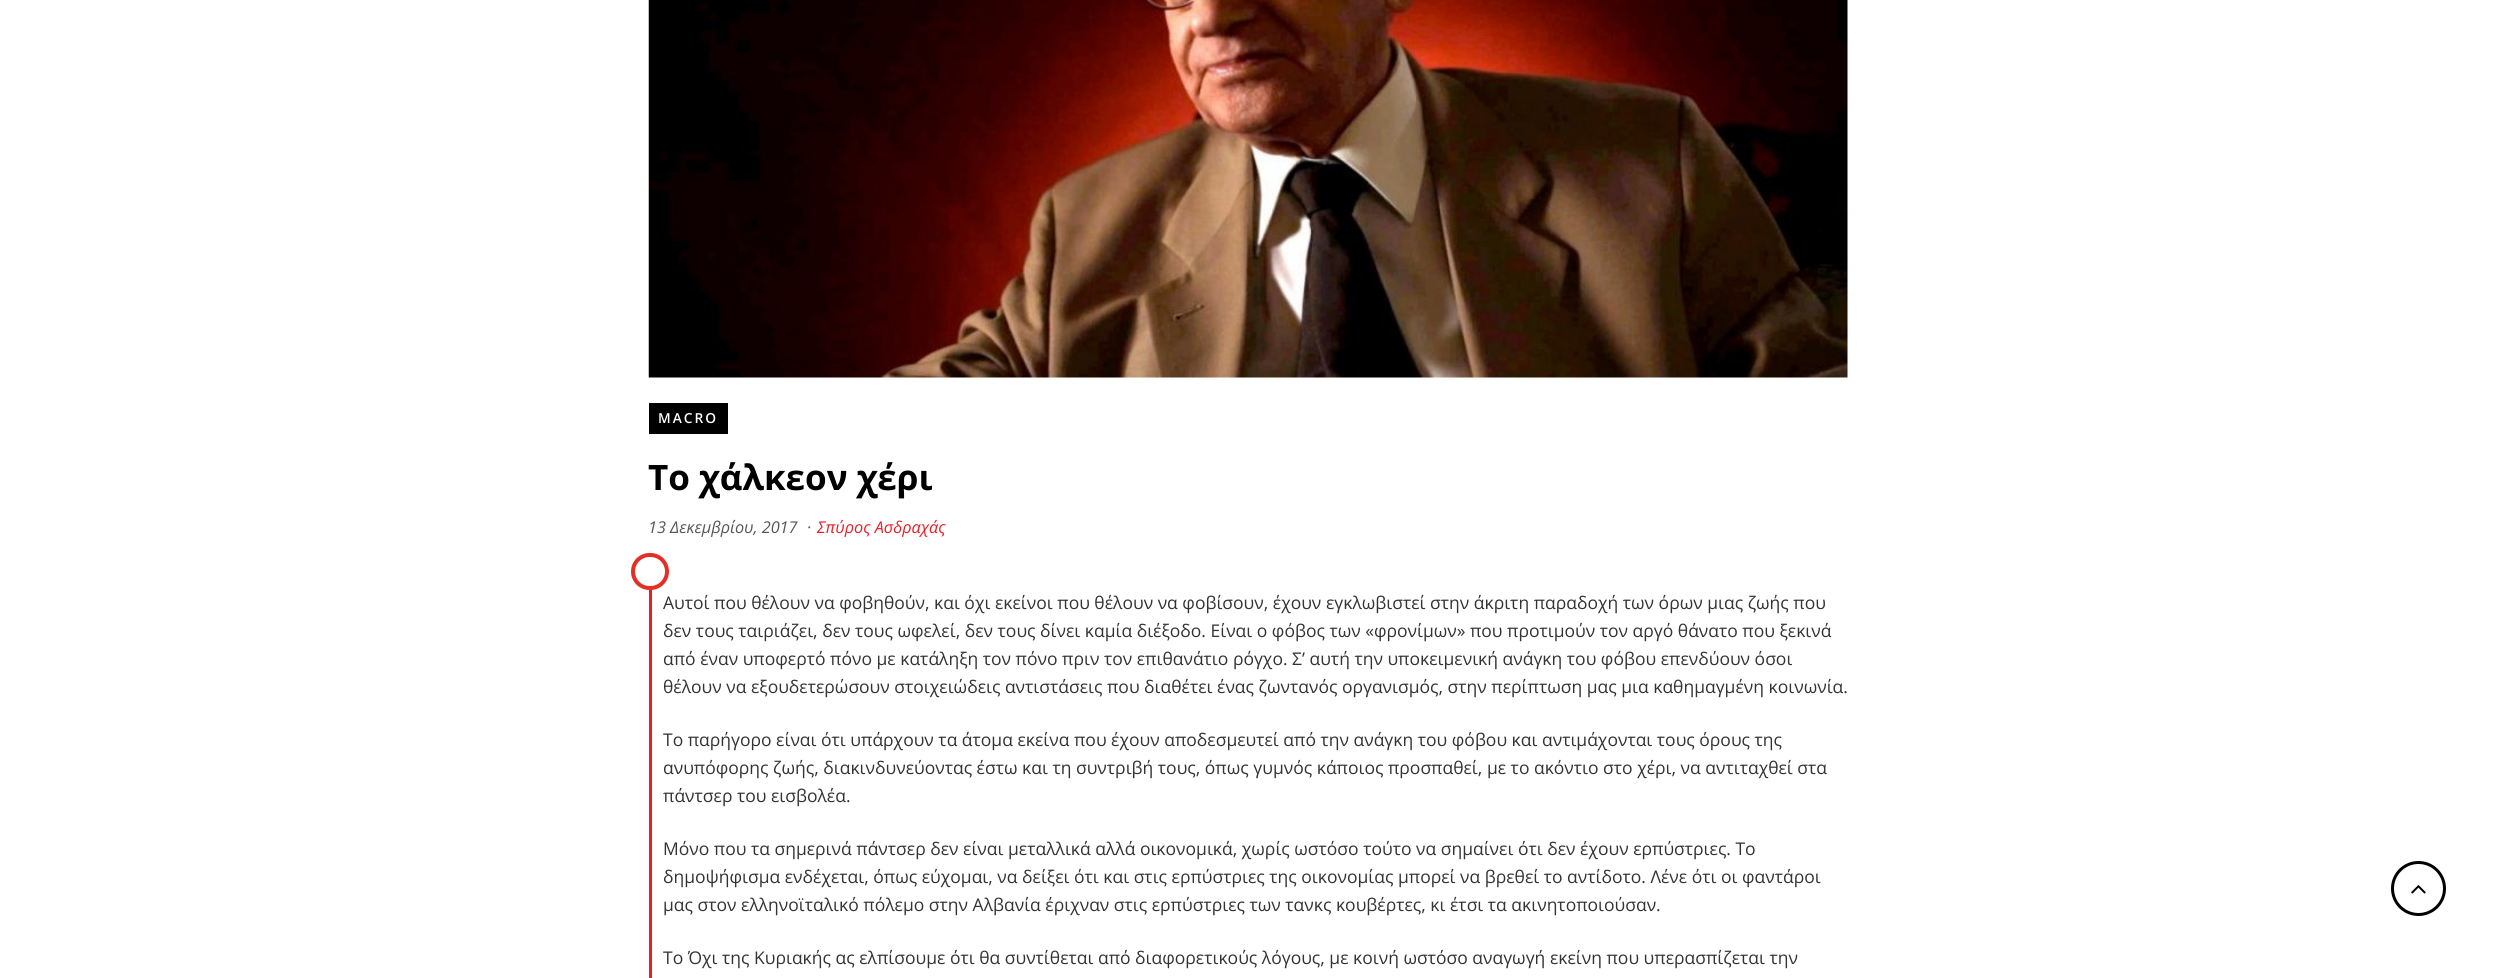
#include <cairo/cairo.h>
#include <math.h>
#include <stddef.h>

typedef struct { double x, y; const char *s; } line_t;
static cairo_t *cr;

static void rgb(unsigned color)
{
	cairo_set_source_rgb(cr, (color >> 16) / 255.0, (color >> 8 & 255) / 255.0, (color & 255) / 255.0);
}

static void tracked(double x, double y, const char *s, double letter, double word)
{
	cairo_move_to(cr, x, y);
	while (*s) {
		char ch[5] = {0};
		int n = 0;
		do ch[n++] = *s++; while ((*s & 0xC0) == 0x80);
		cairo_show_text(cr, ch);
		cairo_rel_move_to(cr, letter + word * (*ch == ' '), 0);
	}
}

static void rrect(double x, double y, double w, double h, double r)
{
	cairo_new_sub_path(cr);
	cairo_arc(cr, x + w - r, y + h - r, r, 0, M_PI / 2);
	cairo_arc(cr, x + r, y + h - r, r, M_PI / 2, M_PI);
	cairo_arc(cr, x + r, y + r, r, M_PI, 1.5 * M_PI);
	cairo_arc(cr, x + w - r, y + r, r, 1.5 * M_PI, 2 * M_PI);
	cairo_close_path(cr);
}

static void image(const char *path, double x, double y, double w, double h)
{
	cairo_surface_t *image = cairo_image_surface_create_from_png(path);
	cairo_save(cr);
	cairo_set_source_surface(cr, image, x, y);
	cairo_rectangle(cr, x, y, w, h);
	cairo_fill(cr);
	cairo_restore(cr);
	cairo_surface_destroy(image);
}

int main(void) {
	cairo_surface_t *surface = cairo_image_surface_create(CAIRO_FORMAT_RGB24, 2496, 978);
	cr = cairo_create(surface);
	cairo_font_options_t *options = cairo_font_options_create();
	cairo_font_options_set_hint_metrics(options, CAIRO_HINT_METRICS_OFF);
	cairo_font_options_set_hint_style(options, CAIRO_HINT_STYLE_NONE);
	cairo_set_font_options(cr, options);
	cairo_set_miter_limit(cr, 4);
	rgb(0xffffff);
	cairo_paint(cr);
	image("img/1.png", 648, 0, 1200, 378);
	rgb(0x000000);
	cairo_rectangle(cr, 649, 403, 79, 31);
	cairo_fill(cr);
	rrect(633, 555, 34, 33, 16.5);
	rgb(0xe52f25);
	cairo_set_line_width(cr, 4);
	cairo_stroke(cr);
	rgb(0xed1c24);
	cairo_rectangle(cr, 649, 590, 3, 388);
	cairo_fill(cr);
	cairo_arc(cr, 2418.5, 888.5, 26, 0, 2 * M_PI);
	rgb(0x000000);
	cairo_set_line_width(cr, 3);
	cairo_stroke(cr);
	image("img/2.png", 2411, 885, 15, 9);
	cairo_select_font_face(cr, "Open Sans SemiBold", CAIRO_FONT_SLANT_NORMAL, CAIRO_FONT_WEIGHT_NORMAL);
	cairo_set_font_size(cr, 13.75);
	rgb(0xffffff);
	tracked(658, 423, "MACRO", 2, 0);
	cairo_select_font_face(cr, "Open Sans", CAIRO_FONT_SLANT_NORMAL, CAIRO_FONT_WEIGHT_BOLD);
	cairo_set_font_size(cr, 35);
	rgb(0x000000);
	cairo_move_to(cr, 648, 490);
	cairo_show_text(cr, "Το χάλκεον χέρι");
	cairo_select_font_face(cr, "Open Sans", CAIRO_FONT_SLANT_ITALIC, CAIRO_FONT_WEIGHT_NORMAL);
	cairo_set_font_size(cr, 16.25);
	rgb(0x565656);
	cairo_move_to(cr, 648, 533);
	cairo_show_text(cr, "13 Δεκεμβρίου, 2017");
	cairo_move_to(cr, 807, 533);
	cairo_show_text(cr, "·");
	rgb(0xed1c24);
	cairo_move_to(cr, 817, 533);
	cairo_show_text(cr, "Σπύρος Ασδραχάς");
	cairo_select_font_face(cr, "Open Sans", CAIRO_FONT_SLANT_NORMAL, CAIRO_FONT_WEIGHT_NORMAL);
	cairo_set_font_size(cr, 17.5);
	rgb(0x333333);
	{
		static const line_t items[] = {
			{663, 609, "Αυτοί που θέλουν να φοβηθούν, και όχι εκείνοι που θέλουν να φοβίσουν, έχουν εγκλωβιστεί στην άκριτη παραδοχή των όρων μιας ζωής που"},
			{663, 637, "δεν τους ταιριάζει, δεν τους ωφελεί, δεν τους δίνει καμία διέξοδο. Είναι ο φόβος των «φρονίμων» που προτιμούν τον αργό θάνατο που ξεκινά"},
			{663, 665, "από έναν υποφερτό πόνο με κατάληξη τον πόνο πριν τον επιθανάτιο ρόγχο. Σ’ αυτή την υποκειμενική ανάγκη του φόβου επενδύουν όσοι"},
			{663, 693, "θέλουν να εξουδετερώσουν στοιχειώδεις αντιστάσεις που διαθέτει ένας ζωντανός οργανισμός, στην περίπτωση μας μια καθημαγμένη κοινωνία."},
			{663, 746, "Το παρήγορο είναι ότι υπάρχουν τα άτομα εκείνα που έχουν αποδεσμευτεί από την ανάγκη του φόβου και αντιμάχονται τους όρους της"},
			{663, 774, "ανυπόφορης ζωής, διακινδυνεύοντας έστω και τη συντριβή τους, όπως γυμνός κάποιος προσπαθεί, με το ακόντιο στο χέρι, να αντιταχθεί στα"},
			{663, 802, "πάντσερ του εισβολέα."},
			{663, 855, "Μόνο που τα σημερινά πάντσερ δεν είναι μεταλλικά αλλά οικονομικά, χωρίς ωστόσο τούτο να σημαίνει ότι δεν έχουν ερπύστριες. Το"},
			{663, 883, "δημοψήφισμα ενδέχεται, όπως εύχομαι, να δείξει ότι και στις ερπύστριες της οικονομίας μπορεί να βρεθεί το αντίδοτο. Λένε ότι οι φαντάροι"},
			{663, 911, "μας στον ελληνοϊταλικό πόλεμο στην Αλβανία έριχναν στις ερπύστριες των τανκς κουβέρτες, κι έτσι τα ακινητοποιούσαν."},
			{663, 964, "Το Όχι της Κυριακής ας ελπίσουμε ότι θα συντίθεται από διαφορετικούς λόγους, με κοινή ωστόσο αναγωγή εκείνη που υπερασπίζεται την"},
		};
		for (size_t i = 0; i < sizeof items / sizeof *items; i++) {
			cairo_move_to(cr, items[i].x, items[i].y);
			cairo_show_text(cr, items[i].s);
		}
	}
	cairo_surface_write_to_png(surface, "page.png");
	cairo_font_options_destroy(options);
	cairo_destroy(cr);
	cairo_surface_destroy(surface);
	return 0;
}
